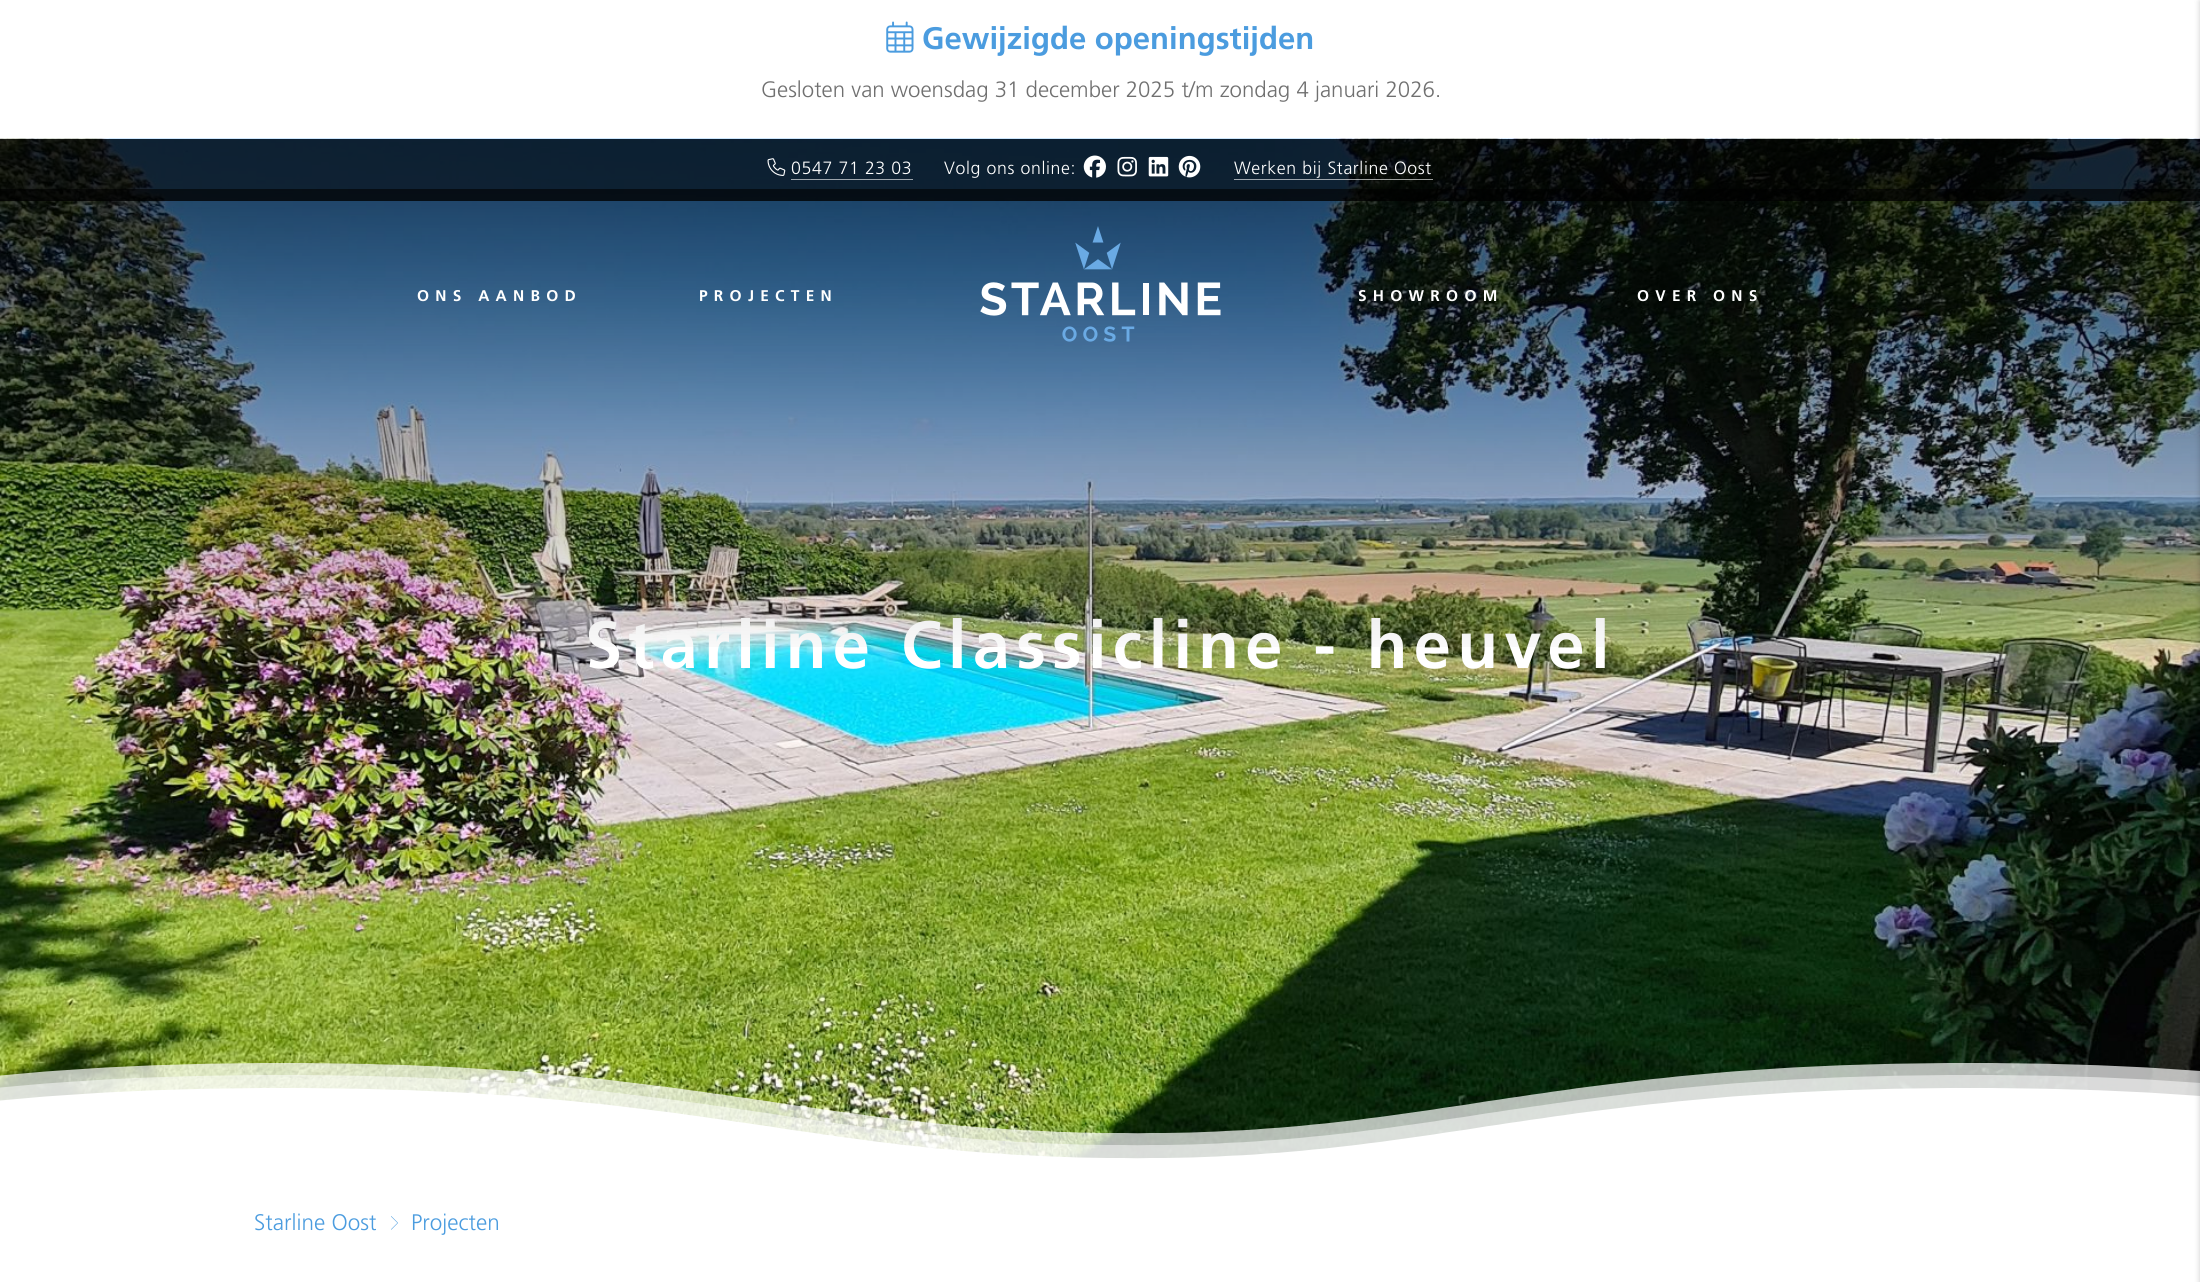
#include <cairo/cairo.h>
#include <math.h>
#include <stddef.h>

static cairo_t *cr;

static void rgb(unsigned color)
{
	cairo_set_source_rgb(cr, (color >> 16) / 255.0, (color >> 8 & 255) / 255.0, (color & 255) / 255.0);
}

static void tracked(double x, double y, const char *s, double letter, double word)
{
	cairo_move_to(cr, x, y);
	while (*s) {
		char ch[5] = {0};
		int n = 0;
		do ch[n++] = *s++; while ((*s & 0xC0) == 0x80);
		cairo_show_text(cr, ch);
		cairo_rel_move_to(cr, letter + word * (*ch == ' '), 0);
	}
}

static void rrect(double x, double y, double w, double h, double r)
{
	cairo_new_sub_path(cr);
	cairo_arc(cr, x + w - r, y + h - r, r, 0, M_PI / 2);
	cairo_arc(cr, x + r, y + h - r, r, M_PI / 2, M_PI);
	cairo_arc(cr, x + r, y + r, r, M_PI, 1.5 * M_PI);
	cairo_arc(cr, x + w - r, y + r, r, 1.5 * M_PI, 2 * M_PI);
	cairo_close_path(cr);
}

static void soft_shadow(double x, double y, double w, double h, double r, double blur, double alpha)
{
	cairo_push_group_with_content(cr, CAIRO_CONTENT_ALPHA);
	cairo_set_operator(cr, CAIRO_OPERATOR_SOURCE);
	for (int i = 15; i >= -15 && fmin(w, h) + blur * i / 3 > 0; i -= 2) {
		double e = blur * i / 6;
		cairo_set_source_rgba(cr, 0, 0, 0, alpha * erfc((i - 1) / 8.5) / 2);
		rrect(x - e, y - e, w + 2 * e, h + 2 * e, fmax(0, fmin(r + e + blur * .6, fmin(w, h) / 2 + e)));
		cairo_fill(cr);
	}
	cairo_pattern_t *soft = cairo_pop_group(cr);
	cairo_mask(cr, soft);
	cairo_pattern_destroy(soft);
}

static void image(const char *path, double x, double y, double w, double h)
{
	cairo_surface_t *image = cairo_image_surface_create_from_png(path);
	cairo_save(cr);
	cairo_set_source_surface(cr, image, x, y);
	cairo_rectangle(cr, x, y, w, h);
	cairo_fill(cr);
	cairo_restore(cr);
	cairo_surface_destroy(image);
}

int main(void) {
	cairo_surface_t *surface = cairo_image_surface_create(CAIRO_FORMAT_RGB24, 2200, 1282);
	cr = cairo_create(surface);
	cairo_font_options_t *options = cairo_font_options_create();
	cairo_font_options_set_hint_metrics(options, CAIRO_HINT_METRICS_OFF);
	cairo_font_options_set_hint_style(options, CAIRO_HINT_STYLE_NONE);
	cairo_set_font_options(cr, options);
	cairo_set_miter_limit(cr, 4);
	cairo_pattern_t *gradient;
	rgb(0xffffff);
	cairo_paint(cr);
	image("img/1.png", 886, 21, 28, 32);
	image("img/7.png", 0, 138, 2200, 1021);
	image("img/9.png", 0, 1063, 2200, 96);
	image("img/10.png", 0, 1075, 2200, 84);
	image("img/11.png", 0, 1088, 2200, 114);
	image("img/12.png", 391, 1216, 7, 14);
	cairo_select_font_face(cr, "Frutiger", CAIRO_FONT_SLANT_NORMAL, CAIRO_FONT_WEIGHT_BOLD);
	cairo_set_font_size(cr, 31.1);
	rgb(0x4b9cdf);
	cairo_move_to(cr, 922, 49);
	cairo_show_text(cr, "Gewijzigde openingstijden");
	cairo_select_font_face(cr, "Frutiger Light", CAIRO_FONT_SLANT_NORMAL, CAIRO_FONT_WEIGHT_NORMAL);
	cairo_set_font_size(cr, 22.25);
	rgb(0x707070);
	cairo_move_to(cr, 761, 97);
	cairo_show_text(cr, "Gesloten van woensdag 31 december 2025 t/m zondag 4 januari 2026.");
	cairo_select_font_face(cr, "Frutiger", CAIRO_FONT_SLANT_NORMAL, CAIRO_FONT_WEIGHT_BOLD);
	cairo_set_font_size(cr, 66.75);
	rgb(0xffffff);
	tracked(585, 668, "Starline Classicline - heuvel", 6.25, 0);
	gradient = cairo_pattern_create_linear(1100, 1139, 1100, 189);
	cairo_pattern_add_color_stop_rgba(gradient, 0.5, 0, 0, 0, 0);
	cairo_pattern_add_color_stop_rgba(gradient, 1, 0, 0, 0, 0.6);
	cairo_set_source(cr, gradient);
	cairo_pattern_destroy(gradient);
	cairo_rectangle(cr, 0, 189, 2200, 458);
	cairo_fill(cr);
	cairo_set_source_rgba(cr, 0, 0, 0, 0.8);
	cairo_rectangle(cr, 0, 139, 2200, 62);
	cairo_fill(cr);
	image("img/6.png", 1178, 155, 23, 23);
	image("img/5.png", 1148, 156, 21, 21);
	image("img/4.png", 1117, 156, 20, 21);
	image("img/3.png", 1083, 155, 23, 23);
	cairo_select_font_face(cr, "Frutiger Light", CAIRO_FONT_SLANT_NORMAL, CAIRO_FONT_WEIGHT_NORMAL);
	cairo_set_font_size(cr, 17.75);
	rgb(0xffffff);
	tracked(1234, 174, "Werken bij Starline Oost", 0.6, 0);
	cairo_set_source_rgba(cr, 1, 1, 1, 0.6);
	cairo_rectangle(cr, 1234, 179, 199, 1);
	cairo_fill(cr);
	rgb(0xffffff);
	tracked(944, 174, "Volg ons online:", 0.6, 0);
	tracked(791, 174, "0547 71 23 03", 0.6, 0);
	rgb(0x9ea6ad);
	cairo_rectangle(cr, 791, 179, 122, 1);
	cairo_fill(cr);
	image("img/2.png", 767, 158, 19, 18);
	cairo_select_font_face(cr, "Frutiger", CAIRO_FONT_SLANT_NORMAL, CAIRO_FONT_WEIGHT_BOLD);
	cairo_set_font_size(cr, 15.5);
	rgb(0xffffff);
	tracked(1637, 301, "OVER ONS", 6.25, 0);
	tracked(1358, 301, "SHOWROOM", 6.25, 0);
	image("img/8.png", 980, 226, 241, 116);
	tracked(699, 301, "PROJECTEN", 6.25, 0);
	tracked(417, 301, "ONS AANBOD", 6.25, 0);
	cairo_select_font_face(cr, "Frutiger Light", CAIRO_FONT_SLANT_NORMAL, CAIRO_FONT_WEIGHT_NORMAL);
	cairo_set_font_size(cr, 22.5);
	rgb(0x4b9cdf);
	cairo_move_to(cr, 254, 1230);
	cairo_show_text(cr, "Starline Oost");
	cairo_move_to(cr, 411, 1230);
	cairo_show_text(cr, "Projecten");
	rgb(0x000000);
	soft_shadow(2200, 1, 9, 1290, 0, 3, 0.2);
	cairo_surface_write_to_png(surface, "page.png");
	cairo_font_options_destroy(options);
	cairo_destroy(cr);
	cairo_surface_destroy(surface);
	return 0;
}
